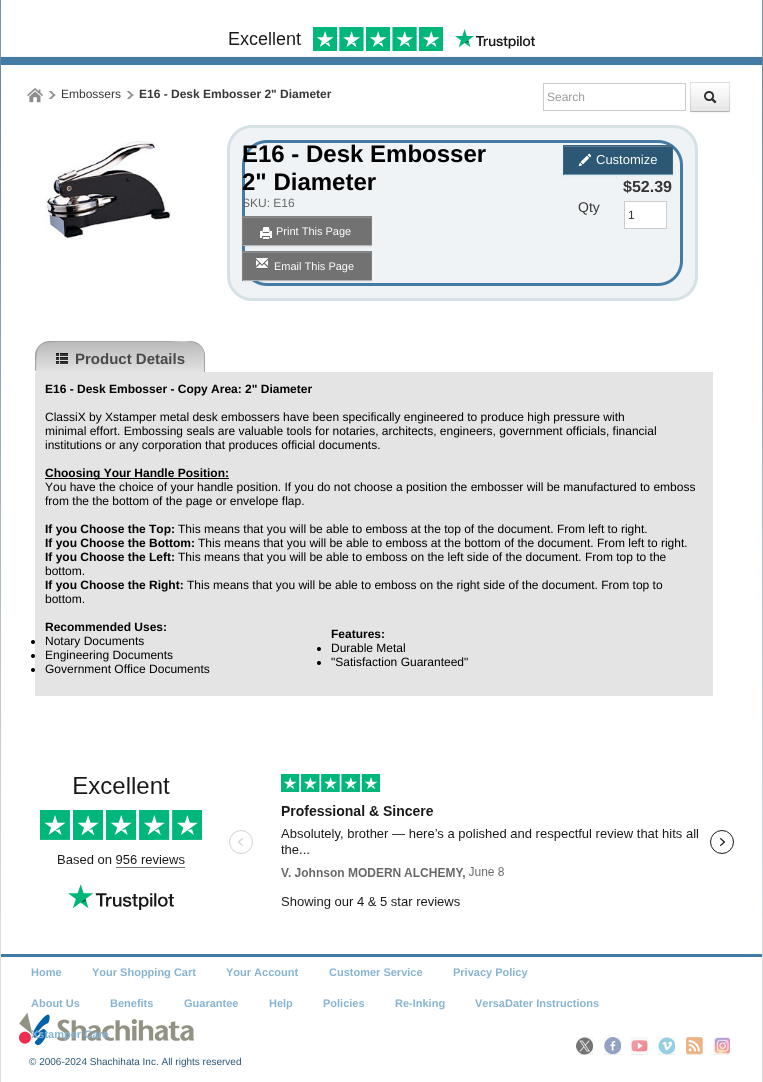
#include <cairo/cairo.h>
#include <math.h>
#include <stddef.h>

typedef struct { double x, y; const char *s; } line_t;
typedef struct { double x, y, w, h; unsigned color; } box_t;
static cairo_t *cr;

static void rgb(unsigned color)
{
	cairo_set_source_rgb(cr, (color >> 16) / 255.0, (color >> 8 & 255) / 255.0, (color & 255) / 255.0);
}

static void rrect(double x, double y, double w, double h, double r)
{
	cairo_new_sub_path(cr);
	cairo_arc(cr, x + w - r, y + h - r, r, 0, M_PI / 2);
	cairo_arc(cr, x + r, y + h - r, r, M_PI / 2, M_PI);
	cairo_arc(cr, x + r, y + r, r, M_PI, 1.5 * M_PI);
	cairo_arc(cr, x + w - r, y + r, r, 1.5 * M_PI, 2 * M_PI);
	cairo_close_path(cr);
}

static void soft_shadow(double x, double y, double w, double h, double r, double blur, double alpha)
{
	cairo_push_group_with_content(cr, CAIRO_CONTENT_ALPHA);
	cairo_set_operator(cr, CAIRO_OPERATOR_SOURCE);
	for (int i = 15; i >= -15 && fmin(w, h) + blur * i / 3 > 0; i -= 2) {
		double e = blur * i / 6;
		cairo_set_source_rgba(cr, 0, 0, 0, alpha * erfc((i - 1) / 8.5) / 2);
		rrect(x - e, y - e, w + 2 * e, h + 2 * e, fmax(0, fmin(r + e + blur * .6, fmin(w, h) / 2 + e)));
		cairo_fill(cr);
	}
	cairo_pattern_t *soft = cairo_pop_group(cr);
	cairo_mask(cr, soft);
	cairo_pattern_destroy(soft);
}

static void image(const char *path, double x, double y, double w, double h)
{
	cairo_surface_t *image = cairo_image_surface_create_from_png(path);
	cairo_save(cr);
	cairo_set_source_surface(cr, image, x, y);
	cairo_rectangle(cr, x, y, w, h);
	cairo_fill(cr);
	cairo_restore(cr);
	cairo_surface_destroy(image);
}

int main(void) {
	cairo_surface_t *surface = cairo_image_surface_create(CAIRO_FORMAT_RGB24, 763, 1082);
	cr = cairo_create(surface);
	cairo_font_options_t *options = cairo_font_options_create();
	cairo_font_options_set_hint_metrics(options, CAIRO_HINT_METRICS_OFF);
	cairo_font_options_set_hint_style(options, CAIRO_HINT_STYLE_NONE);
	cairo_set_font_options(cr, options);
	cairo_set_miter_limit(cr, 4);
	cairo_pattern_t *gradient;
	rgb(0xfbfcfd);
	cairo_paint(cr);
	image("img/1.png", 0, 0, 763, 919);
	rgb(0xffffff);
	cairo_rectangle(cr, 1, 0, 761, 1082);
	cairo_fill(cr);
	image("img/2.png", 229, 27, 306, 24);
	cairo_save(cr);
	cairo_set_fill_rule(cr, CAIRO_FILL_RULE_EVEN_ODD);
	cairo_new_path(cr);
	cairo_move_to(cr, 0, 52);
	cairo_line_to(cr, 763, 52);
	cairo_line_to(cr, 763, 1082);
	cairo_line_to(cr, 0, 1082);
	cairo_close_path(cr);
	cairo_move_to(cr, 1, 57);
	cairo_line_to(cr, 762, 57);
	cairo_line_to(cr, 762, 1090);
	cairo_line_to(cr, 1, 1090);
	cairo_close_path(cr);
	cairo_clip(cr);
	rgb(0x000000);
	soft_shadow(1, 59, 761, 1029, 0, 2, 0.3);
	cairo_restore(cr);
	rgb(0x447ba4);
	cairo_rectangle(cr, 1, 57, 761, 8);
	cairo_fill(cr);
	image("img/3.png", 27, 88, 16, 15);
	image("img/4.png", 48, 91, 8, 8);
	image("img/4.png", 126, 91, 8, 8);
	cairo_rectangle(cr, 543.5, 83.5, 142, 27);
	rgb(0xcccccc);
	cairo_set_line_width(cr, 1);
	cairo_stroke(cr);
	rgb(0x000000);
	soft_shadow(690, 83, 40, 30, 0, 1, 0.05);
	rgb(0xf5f5f5);
	cairo_rectangle(cr, 690, 82, 40, 29);
	cairo_fill(cr);
	gradient = cairo_pattern_create_linear(710, 83, 710, 111);
	cairo_pattern_add_color_stop_rgba(gradient, 0, 1, 1, 1, 1);
	cairo_pattern_add_color_stop_rgba(gradient, 1, 0.902, 0.902, 0.902, 1);
	cairo_set_source(cr, gradient);
	cairo_pattern_destroy(gradient);
	cairo_rectangle(cr, 690, 83, 40, 28);
	cairo_fill(cr);
	rgb(0xdddddd);
	cairo_new_path(cr);
	cairo_move_to(cr, 690, 82);
	cairo_line_to(cr, 730, 82);
	cairo_line_to(cr, 729, 83);
	cairo_line_to(cr, 691, 83);
	cairo_close_path(cr);
	cairo_fill(cr);
	cairo_set_source_rgba(cr, 0, 0, 0, 0.1);
	cairo_new_path(cr);
	cairo_move_to(cr, 730, 82);
	cairo_line_to(cr, 730, 112);
	cairo_line_to(cr, 729, 111);
	cairo_line_to(cr, 729, 83);
	cairo_close_path(cr);
	cairo_fill(cr);
	rgb(0xb3b3b3);
	cairo_new_path(cr);
	cairo_move_to(cr, 730, 112);
	cairo_line_to(cr, 690, 112);
	cairo_line_to(cr, 691, 111);
	cairo_line_to(cr, 729, 111);
	cairo_close_path(cr);
	cairo_fill(cr);
	cairo_set_source_rgba(cr, 0, 0, 0, 0.1);
	cairo_new_path(cr);
	cairo_move_to(cr, 690, 112);
	cairo_line_to(cr, 690, 82);
	cairo_line_to(cr, 691, 83);
	cairo_line_to(cr, 691, 111);
	cairo_close_path(cr);
	cairo_fill(cr);
	image("img/5.png", 704, 91, 13, 13);
	image("img/6.png", 45, 141, 126, 99);
	rgb(0xeff3f6);
	rrect(228.5, 126.5, 468, 173, 23.5);
	cairo_fill_preserve(cr);
	rgb(0xd6e1e5);
	cairo_set_line_width(cr, 3);
	cairo_stroke(cr);
	rrect(243.5, 141.5, 438, 143, 23.5);
	rgb(0x447ba4);
	cairo_stroke(cr);
	rgb(0x000000);
	soft_shadow(242, 217, 130, 30, 0, 1, 0.05);
	{
		static const box_t items[] = {
			{243, 218, 128, 27, 0x727272},
			{243, 217, 128, 1, 0x8e8e8e},
			{242, 216, 130, 1, 0x818181},
			{371, 216, 1, 30, 0x818181},
			{242, 245, 130, 1, 0xb4b4b4},
			{242, 216, 1, 30, 0x818181},
		};
		for (size_t i = 0; i < sizeof items / sizeof *items; i++) {
			rgb(items[i].color);
			cairo_rectangle(cr, items[i].x, items[i].y, items[i].w, items[i].h);
			cairo_fill(cr);
		}
	}
	image("img/7.png", 260, 227, 12, 13);
	rgb(0x000000);
	soft_shadow(242, 252, 130, 30, 0, 1, 0.05);
	{
		static const box_t items[] = {
			{243, 253, 128, 27, 0x727272},
			{243, 252, 128, 1, 0x8e8e8e},
			{242, 251, 130, 1, 0x818181},
			{371, 251, 1, 30, 0x818181},
			{242, 280, 130, 1, 0xb4b4b4},
			{242, 251, 1, 30, 0x818181},
		};
		for (size_t i = 0; i < sizeof items / sizeof *items; i++) {
			rgb(items[i].color);
			cairo_rectangle(cr, items[i].x, items[i].y, items[i].w, items[i].h);
			cairo_fill(cr);
		}
	}
	image("img/8.png", 256, 258, 12, 11);
	rgb(0x000000);
	soft_shadow(563, 146, 110, 30, 0, 1, 0.05);
	{
		static const box_t items[] = {
			{564, 147, 108, 27, 0x2c5876},
			{564, 146, 108, 1, 0x567991},
			{563, 145, 110, 1, 0x3b6785},
			{672, 145, 1, 30, 0x3b6785},
			{563, 174, 110, 1, 0x6e9ab8},
			{563, 145, 1, 30, 0x3b6785},
		};
		for (size_t i = 0; i < sizeof items / sizeof *items; i++) {
			rgb(items[i].color);
			cairo_rectangle(cr, items[i].x, items[i].y, items[i].w, items[i].h);
			cairo_fill(cr);
		}
	}
	image("img/9.png", 578, 153, 13, 14);
	rgb(0xffffff);
	cairo_rectangle(cr, 624.5, 201.5, 42, 27);
	cairo_fill_preserve(cr);
	rgb(0xcccccc);
	cairo_set_line_width(cr, 1);
	cairo_stroke(cr);
	cairo_save(cr);
	rrect(35, 341, 715, 31, 3);
	cairo_clip(cr);
	rgb(0xdcdcdc);
	cairo_new_path(cr);
	cairo_move_to(cr, 50, 341);
	cairo_line_to(cr, 190, 341);
	cairo_curve_to(cr, 198.5, 341, 205, 347.5, 205, 356);
	cairo_line_to(cr, 205, 372);
	cairo_line_to(cr, 38, 372);
	cairo_curve_to(cr, 36.5, 372, 35, 370.5, 35, 369);
	cairo_line_to(cr, 35, 356);
	cairo_curve_to(cr, 35, 347.5, 41.5, 341, 50, 341);
	cairo_close_path(cr);
	cairo_fill(cr);
	cairo_restore(cr);
	cairo_save(cr);
	rrect(35, 341, 715, 31, 3);
	cairo_clip(cr);
	cairo_new_path(cr);
	cairo_move_to(cr, 50, 341);
	cairo_line_to(cr, 190, 341);
	cairo_curve_to(cr, 198.5, 341, 205, 347.5, 205, 356);
	cairo_line_to(cr, 205, 372);
	cairo_line_to(cr, 35, 372);
	cairo_line_to(cr, 35, 356);
	cairo_curve_to(cr, 35, 347.5, 41.5, 341, 50, 341);
	cairo_close_path(cr);
	cairo_clip(cr);
	gradient = cairo_pattern_create_linear(120, 342, 120, 372);
	cairo_pattern_add_color_stop_rgba(gradient, 0, 0.729, 0.729, 0.729, 1);
	cairo_pattern_add_color_stop_rgba(gradient, 1, 0.886, 0.886, 0.886, 1);
	cairo_set_source(cr, gradient);
	cairo_pattern_destroy(gradient);
	cairo_new_path(cr);
	cairo_move_to(cr, 35, 342);
	cairo_line_to(cr, 205, 342);
	cairo_line_to(cr, 205, 372);
	cairo_line_to(cr, 38, 372);
	cairo_curve_to(cr, 36.5, 372, 35, 370.5, 35, 369);
	cairo_close_path(cr);
	cairo_fill(cr);
	cairo_restore(cr);
	rgb(0xa2a2a2);
	cairo_new_path(cr);
	cairo_move_to(cr, 50, 341);
	cairo_curve_to(cr, 42, 341, 35, 348, 35, 356);
	cairo_line_to(cr, 35, 369);
	cairo_curve_to(cr, 35, 370, 35, 371, 36, 371);
	cairo_curve_to(cr, 36, 339, 39, 342, 73, 342);
	cairo_line_to(cr, 167, 342);
	cairo_curve_to(cr, 177, 342, 201, 337, 204, 353);
	cairo_line_to(cr, 204, 372);
	cairo_line_to(cr, 205, 372);
	cairo_line_to(cr, 205, 356);
	cairo_curve_to(cr, 205, 348, 198, 341, 190, 341);
	cairo_close_path(cr);
	cairo_fill(cr);
	image("img/10.png", 56, 353, 12, 12);
	rgb(0xe4e4e4);
	cairo_rectangle(cr, 35, 372, 678, 324);
	cairo_fill(cr);
	rgb(0x000000);
	cairo_rectangle(cr, 45, 478, 184, 1);
	cairo_fill(cr);
	cairo_arc(cr, 33, 642, 2, 0, 2 * M_PI);
	cairo_fill(cr);
	cairo_arc(cr, 33, 656, 2, 0, 2 * M_PI);
	cairo_fill(cr);
	cairo_arc(cr, 33, 670, 2, 0, 2 * M_PI);
	cairo_fill(cr);
	cairo_arc(cr, 319, 649, 2, 0, 2 * M_PI);
	cairo_fill(cr);
	cairo_arc(cr, 319, 663, 2, 0, 2 * M_PI);
	cairo_fill(cr);
	image("img/11.png", 40, 774, 694, 136);
	rgb(0x447ba4);
	cairo_rectangle(cr, 1, 954, 761, 3);
	cairo_fill(cr);
	image("img/12.png", 576, 1037, 17, 18);
	image("img/13.png", 604, 1037, 17, 18);
	image("img/14.png", 631, 1037, 17, 18);
	image("img/15.png", 658, 1037, 17, 18);
	image("img/16.png", 686, 1037, 17, 18);
	image("img/17.png", 713, 1037, 17, 18);
	image("img/18.png", 19, 1013, 175, 32);
	cairo_select_font_face(cr, "Liberation Sans", CAIRO_FONT_SLANT_NORMAL, CAIRO_FONT_WEIGHT_NORMAL);
	cairo_set_font_size(cr, 12);
	rgb(0x363636);
	cairo_move_to(cr, 61, 98);
	cairo_show_text(cr, "Embossers");
	cairo_select_font_face(cr, "Liberation Sans", CAIRO_FONT_SLANT_NORMAL, CAIRO_FONT_WEIGHT_BOLD);
	cairo_move_to(cr, 139, 98);
	cairo_show_text(cr, "E16 - Desk Embosser 2\" Diameter");
	cairo_select_font_face(cr, "Liberation Sans", CAIRO_FONT_SLANT_NORMAL, CAIRO_FONT_WEIGHT_NORMAL);
	rgb(0x999999);
	cairo_move_to(cr, 547, 101);
	cairo_show_text(cr, "Search");
	cairo_select_font_face(cr, "Liberation Sans", CAIRO_FONT_SLANT_NORMAL, CAIRO_FONT_WEIGHT_BOLD);
	cairo_set_font_size(cr, 24);
	rgb(0x000000);
	cairo_move_to(cr, 242, 162);
	cairo_show_text(cr, "E16 - Desk Embosser");
	cairo_move_to(cr, 242, 190);
	cairo_show_text(cr, "2\" Diameter");
	cairo_select_font_face(cr, "Liberation Sans", CAIRO_FONT_SLANT_NORMAL, CAIRO_FONT_WEIGHT_NORMAL);
	cairo_set_font_size(cr, 12);
	rgb(0x666666);
	cairo_move_to(cr, 242, 207);
	cairo_show_text(cr, "SKU: E16");
	cairo_set_font_size(cr, 11);
	rgb(0xffffff);
	cairo_move_to(cr, 276, 235);
	cairo_show_text(cr, "Print This Page");
	cairo_move_to(cr, 274, 270);
	cairo_show_text(cr, "Email This Page");
	cairo_set_font_size(cr, 13);
	cairo_move_to(cr, 596, 164);
	cairo_show_text(cr, "Customize");
	cairo_select_font_face(cr, "Liberation Sans", CAIRO_FONT_SLANT_NORMAL, CAIRO_FONT_WEIGHT_BOLD);
	cairo_set_font_size(cr, 16);
	rgb(0x363636);
	cairo_move_to(cr, 623, 192);
	cairo_show_text(cr, "$52.39");
	cairo_select_font_face(cr, "Liberation Sans", CAIRO_FONT_SLANT_NORMAL, CAIRO_FONT_WEIGHT_NORMAL);
	cairo_set_font_size(cr, 14);
	cairo_move_to(cr, 578, 212);
	cairo_show_text(cr, "Qty");
	cairo_set_font_size(cr, 12);
	cairo_move_to(cr, 628, 219);
	cairo_show_text(cr, "1");
	cairo_select_font_face(cr, "Liberation Sans", CAIRO_FONT_SLANT_NORMAL, CAIRO_FONT_WEIGHT_BOLD);
	cairo_set_font_size(cr, 15);
	rgb(0x484848);
	cairo_move_to(cr, 75, 364);
	cairo_show_text(cr, "Product Details");
	cairo_set_font_size(cr, 12);
	rgb(0x000000);
	cairo_move_to(cr, 45, 393);
	cairo_show_text(cr, "E16 - Desk Embosser - Copy Area: 2\" Diameter");
	cairo_select_font_face(cr, "Liberation Sans", CAIRO_FONT_SLANT_NORMAL, CAIRO_FONT_WEIGHT_NORMAL);
	{
		static const line_t items[] = {
			{45, 421, "ClassiX by Xstamper metal desk embossers have been specifically engineered to produce high pressure with"},
			{45, 435, "minimal effort. Embossing seals are valuable tools for notaries, architects, engineers, government officials, financial"},
			{45, 449, "institutions or any corporation that produces official documents."},
		};
		for (size_t i = 0; i < sizeof items / sizeof *items; i++) {
			cairo_move_to(cr, items[i].x, items[i].y);
			cairo_show_text(cr, items[i].s);
		}
	}
	cairo_select_font_face(cr, "Liberation Sans", CAIRO_FONT_SLANT_NORMAL, CAIRO_FONT_WEIGHT_BOLD);
	cairo_move_to(cr, 45, 477);
	cairo_show_text(cr, "Choosing Your Handle Position:");
	cairo_select_font_face(cr, "Liberation Sans", CAIRO_FONT_SLANT_NORMAL, CAIRO_FONT_WEIGHT_NORMAL);
	cairo_move_to(cr, 45, 491);
	cairo_show_text(cr, "You have the choice of your handle position. If you do not choose a position the embosser will be manufactured to emboss");
	cairo_move_to(cr, 45, 505);
	cairo_show_text(cr, "from the the bottom of the page or envelope flap.");
	cairo_select_font_face(cr, "Liberation Sans", CAIRO_FONT_SLANT_NORMAL, CAIRO_FONT_WEIGHT_BOLD);
	cairo_move_to(cr, 45, 533);
	cairo_show_text(cr, "If you Choose the Top:");
	cairo_select_font_face(cr, "Liberation Sans", CAIRO_FONT_SLANT_NORMAL, CAIRO_FONT_WEIGHT_NORMAL);
	cairo_move_to(cr, 178, 533);
	cairo_show_text(cr, "This means that you will be able to emboss at the top of the document. From left to right.");
	cairo_select_font_face(cr, "Liberation Sans", CAIRO_FONT_SLANT_NORMAL, CAIRO_FONT_WEIGHT_BOLD);
	cairo_move_to(cr, 45, 547);
	cairo_show_text(cr, "If you Choose the Bottom:");
	cairo_select_font_face(cr, "Liberation Sans", CAIRO_FONT_SLANT_NORMAL, CAIRO_FONT_WEIGHT_NORMAL);
	cairo_move_to(cr, 198, 547);
	cairo_show_text(cr, "This means that you will be able to emboss at the bottom of the document. From left to right.");
	cairo_select_font_face(cr, "Liberation Sans", CAIRO_FONT_SLANT_NORMAL, CAIRO_FONT_WEIGHT_BOLD);
	cairo_move_to(cr, 45, 561);
	cairo_show_text(cr, "If you Choose the Left:");
	cairo_select_font_face(cr, "Liberation Sans", CAIRO_FONT_SLANT_NORMAL, CAIRO_FONT_WEIGHT_NORMAL);
	cairo_move_to(cr, 178, 561);
	cairo_show_text(cr, "This means that you will be able to emboss on the left side of the document. From top to the");
	cairo_move_to(cr, 45, 575);
	cairo_show_text(cr, "bottom.");
	cairo_select_font_face(cr, "Liberation Sans", CAIRO_FONT_SLANT_NORMAL, CAIRO_FONT_WEIGHT_BOLD);
	cairo_move_to(cr, 45, 589);
	cairo_show_text(cr, "If you Choose the Right:");
	cairo_select_font_face(cr, "Liberation Sans", CAIRO_FONT_SLANT_NORMAL, CAIRO_FONT_WEIGHT_NORMAL);
	cairo_move_to(cr, 187, 589);
	cairo_show_text(cr, "This means that you will be able to emboss on the right side of the document. From top to");
	cairo_move_to(cr, 45, 603);
	cairo_show_text(cr, "bottom.");
	cairo_select_font_face(cr, "Liberation Sans", CAIRO_FONT_SLANT_NORMAL, CAIRO_FONT_WEIGHT_BOLD);
	cairo_move_to(cr, 45, 631);
	cairo_show_text(cr, "Recommended Uses:");
	cairo_select_font_face(cr, "Liberation Sans", CAIRO_FONT_SLANT_NORMAL, CAIRO_FONT_WEIGHT_NORMAL);
	{
		static const line_t items[] = {
			{45, 645, "Notary Documents"},
			{45, 659, "Engineering Documents"},
			{45, 673, "Government Office Documents"},
		};
		for (size_t i = 0; i < sizeof items / sizeof *items; i++) {
			cairo_move_to(cr, items[i].x, items[i].y);
			cairo_show_text(cr, items[i].s);
		}
	}
	cairo_select_font_face(cr, "Liberation Sans", CAIRO_FONT_SLANT_NORMAL, CAIRO_FONT_WEIGHT_BOLD);
	cairo_move_to(cr, 331, 638);
	cairo_show_text(cr, "Features:");
	cairo_select_font_face(cr, "Liberation Sans", CAIRO_FONT_SLANT_NORMAL, CAIRO_FONT_WEIGHT_NORMAL);
	cairo_move_to(cr, 331, 652);
	cairo_show_text(cr, "Durable Metal");
	cairo_move_to(cr, 331, 666);
	cairo_show_text(cr, "\"Satisfaction Guaranteed\"");
	cairo_select_font_face(cr, "Liberation Sans", CAIRO_FONT_SLANT_NORMAL, CAIRO_FONT_WEIGHT_BOLD);
	cairo_set_font_size(cr, 11);
	rgb(0x86b3d2);
	{
		static const line_t items[] = {
			{31, 976, "Home"},
			{92, 976, "Your Shopping Cart"},
			{226, 976, "Your Account"},
			{329, 976, "Customer Service"},
			{453, 976, "Privacy Policy"},
			{31, 1007, "About Us"},
			{110, 1007, "Benefits"},
			{184, 1007, "Guarantee"},
			{269, 1007, "Help"},
			{323, 1007, "Policies"},
			{395, 1007, "Re-Inking"},
			{475, 1007, "VersaDater Instructions"},
			{31, 1038, "Xstamper Care"},
		};
		for (size_t i = 0; i < sizeof items / sizeof *items; i++) {
			cairo_move_to(cr, items[i].x, items[i].y);
			cairo_show_text(cr, items[i].s);
		}
	}
	cairo_select_font_face(cr, "Liberation Sans", CAIRO_FONT_SLANT_NORMAL, CAIRO_FONT_WEIGHT_NORMAL);
	cairo_set_font_size(cr, 10);
	rgb(0x295573);
	cairo_move_to(cr, 29, 1065);
	cairo_show_text(cr, "© 2006-2024 Shachihata Inc. All rights reserved");
	cairo_surface_write_to_png(surface, "page.png");
	cairo_font_options_destroy(options);
	cairo_destroy(cr);
	cairo_surface_destroy(surface);
	return 0;
}
